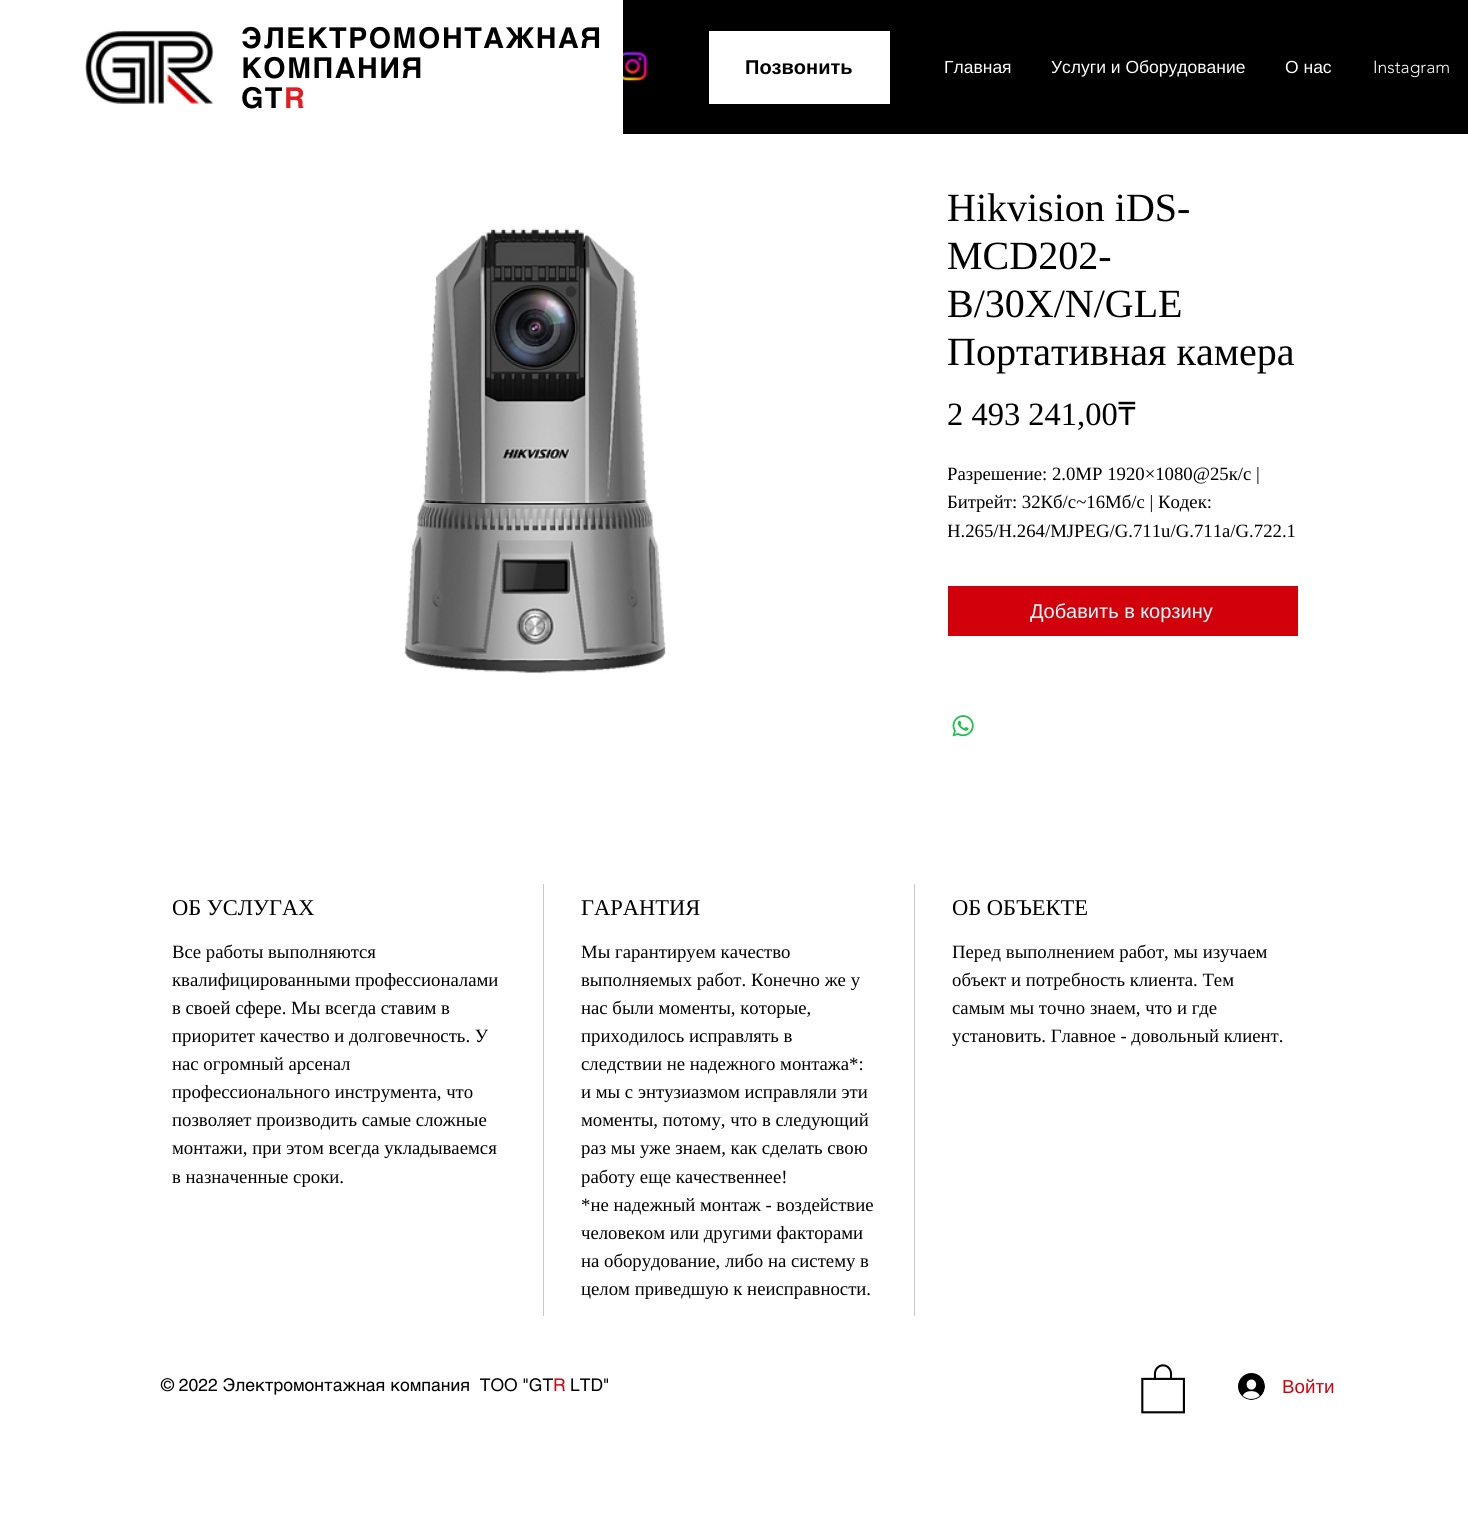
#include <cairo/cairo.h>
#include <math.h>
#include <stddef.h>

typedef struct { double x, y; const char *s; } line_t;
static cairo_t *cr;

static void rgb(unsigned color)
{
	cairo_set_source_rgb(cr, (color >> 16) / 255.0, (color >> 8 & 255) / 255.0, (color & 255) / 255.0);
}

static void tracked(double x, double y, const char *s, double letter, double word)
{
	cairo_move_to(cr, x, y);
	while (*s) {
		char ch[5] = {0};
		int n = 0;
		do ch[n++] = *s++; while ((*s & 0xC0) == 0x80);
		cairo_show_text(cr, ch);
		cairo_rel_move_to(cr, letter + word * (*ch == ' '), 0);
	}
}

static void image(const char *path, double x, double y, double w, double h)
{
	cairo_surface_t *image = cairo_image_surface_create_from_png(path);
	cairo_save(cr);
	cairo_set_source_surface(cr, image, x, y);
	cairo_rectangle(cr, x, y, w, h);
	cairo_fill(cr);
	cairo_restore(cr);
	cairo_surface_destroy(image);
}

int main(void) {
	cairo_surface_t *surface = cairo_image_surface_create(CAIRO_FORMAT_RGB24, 1468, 1515);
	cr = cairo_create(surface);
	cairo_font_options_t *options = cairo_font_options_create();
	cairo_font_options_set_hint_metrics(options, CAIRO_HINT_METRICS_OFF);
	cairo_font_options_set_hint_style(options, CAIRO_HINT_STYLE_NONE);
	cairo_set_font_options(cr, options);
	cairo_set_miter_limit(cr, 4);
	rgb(0xffffff);
	cairo_paint(cr);
	image("img/1.png", 85, 30, 129, 74);
	rgb(0x000000);
	cairo_rectangle(cr, 623, 0, 845, 134);
	cairo_fill(cr);
	image("img/2.png", 623, 51, 25, 31);
	rgb(0xffffff);
	cairo_rectangle(cr, 709, 31, 181, 73);
	cairo_fill(cr);
	image("img/3.png", 404, 228, 262, 446);
	rgb(0xd1000a);
	cairo_rectangle(cr, 948, 586, 350, 50);
	cairo_fill(cr);
	image("img/4.png", 952, 715, 22, 22);
	rgb(0xc7c7c7);
	cairo_rectangle(cr, 543, 884, 1, 432);
	cairo_fill(cr);
	cairo_rectangle(cr, 914, 884, 1, 432);
	cairo_fill(cr);
	image("img/5.png", 1141, 1364, 44, 50);
	image("img/6.png", 1238, 1373, 27, 27);
	cairo_select_font_face(cr, "helvetica", CAIRO_FONT_SLANT_NORMAL, CAIRO_FONT_WEIGHT_BOLD);
	cairo_set_font_size(cr, 28.75);
	rgb(0x000000);
	{
		static const line_t items[] = {
			{241, 48, "ЭЛЕКТРОМОНТАЖНАЯ"},
			{241, 78, "КОМПАНИЯ"},
			{241, 108, "GT"},
		};
		for (size_t i = 0; i < sizeof items / sizeof *items; i++) {
			tracked(items[i].x, items[i].y, items[i].s, 1.5, 0);
		}
	}
	rgb(0xe21c21);
	tracked(284, 108, "R", 1.5, 0);
	cairo_select_font_face(cr, "Liberation Sans", CAIRO_FONT_SLANT_NORMAL, CAIRO_FONT_WEIGHT_BOLD);
	cairo_set_font_size(cr, 20);
	rgb(0x000000);
	cairo_move_to(cr, 745, 74);
	cairo_show_text(cr, "Позвонить");
	cairo_select_font_face(cr, "Liberation Sans", CAIRO_FONT_SLANT_NORMAL, CAIRO_FONT_WEIGHT_NORMAL);
	cairo_set_font_size(cr, 17.5);
	rgb(0xffffff);
	{
		static const line_t items[] = {
			{944, 73, "Главная"},
			{1051, 73, "Услуги и Оборудование"},
			{1285, 73, "О нас"},
		};
		for (size_t i = 0; i < sizeof items / sizeof *items; i++) {
			cairo_move_to(cr, items[i].x, items[i].y);
			cairo_show_text(cr, items[i].s);
		}
	}
	cairo_select_font_face(cr, "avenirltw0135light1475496 Light", CAIRO_FONT_SLANT_NORMAL, CAIRO_FONT_WEIGHT_NORMAL);
	cairo_move_to(cr, 1373, 73);
	cairo_show_text(cr, "Instagram");
	cairo_select_font_face(cr, "Liberation Serif", CAIRO_FONT_SLANT_NORMAL, CAIRO_FONT_WEIGHT_NORMAL);
	cairo_set_font_size(cr, 40);
	rgb(0x000000);
	{
		static const line_t items[] = {
			{947, 221, "Hikvision iDS-"},
			{947, 269, "MCD202-"},
			{947, 317, "B/30X/N/GLE"},
			{947, 365, "Портативная камера"},
		};
		for (size_t i = 0; i < sizeof items / sizeof *items; i++) {
			cairo_move_to(cr, items[i].x, items[i].y);
			cairo_show_text(cr, items[i].s);
		}
	}
	cairo_set_font_size(cr, 32.5);
	cairo_move_to(cr, 947, 425);
	cairo_show_text(cr, "2 493 241,00");
	cairo_select_font_face(cr, "Noto Sans", CAIRO_FONT_SLANT_NORMAL, CAIRO_FONT_WEIGHT_NORMAL);
	cairo_move_to(cr, 1118, 425);
	cairo_show_text(cr, "₸");
	cairo_save(cr);
	cairo_rectangle(cr, 948, 460, 350, 86);
	cairo_clip(cr);
	cairo_select_font_face(cr, "Liberation Serif", CAIRO_FONT_SLANT_NORMAL, CAIRO_FONT_WEIGHT_NORMAL);
	cairo_set_font_size(cr, 18.75);
	{
		static const line_t items[] = {
			{947, 480, "Разрешение: 2.0МР 1920×1080@25к/с |"},
			{947, 508, "Битрейт: 32Кб/с~16Мб/с | Кодек:"},
			{947, 537, "H.265/H.264/MJPEG/G.711u/G.711a/G.722.1"},
		};
		for (size_t i = 0; i < sizeof items / sizeof *items; i++) {
			cairo_move_to(cr, items[i].x, items[i].y);
			cairo_show_text(cr, items[i].s);
		}
	}
	cairo_restore(cr);
	cairo_select_font_face(cr, "Liberation Sans", CAIRO_FONT_SLANT_NORMAL, CAIRO_FONT_WEIGHT_NORMAL);
	cairo_set_font_size(cr, 20);
	rgb(0xffffff);
	cairo_move_to(cr, 1030, 618);
	cairo_show_text(cr, "Добавить в корзину");
	cairo_save(cr);
	cairo_rectangle(cr, 173, 884, 370, 432);
	cairo_clip(cr);
	cairo_select_font_face(cr, "Liberation Serif", CAIRO_FONT_SLANT_NORMAL, CAIRO_FONT_WEIGHT_NORMAL);
	cairo_set_font_size(cr, 22.5);
	rgb(0x000000);
	cairo_move_to(cr, 172, 915);
	cairo_show_text(cr, "ОБ УСЛУГАХ");
	cairo_set_font_size(cr, 18.75);
	cairo_move_to(cr, 172, 958);
	cairo_show_text(cr, "Все работы выполняются");
	cairo_restore(cr);
	cairo_select_font_face(cr, "Liberation Serif", CAIRO_FONT_SLANT_NORMAL, CAIRO_FONT_WEIGHT_NORMAL);
	cairo_set_font_size(cr, 18.75);
	rgb(0x000000);
	{
		static const line_t items[] = {
			{172, 986, "квалифицированными профессионалами"},
			{172, 1014, "в своей сфере. Мы всегда ставим в"},
			{172, 1042, "приоритет качество и долговечность. У"},
			{172, 1070, "нас огромный арсенал"},
			{172, 1098, "профессионального инструмента, что"},
			{172, 1126, "позволяет производить самые сложные"},
			{172, 1154, "монтажи, при этом всегда укладываемся"},
			{172, 1183, "в назначенные сроки."},
		};
		for (size_t i = 0; i < sizeof items / sizeof *items; i++) {
			cairo_move_to(cr, items[i].x, items[i].y);
			cairo_show_text(cr, items[i].s);
		}
	}
	cairo_set_font_size(cr, 22.5);
	cairo_move_to(cr, 581, 915);
	cairo_show_text(cr, "ГАРАНТИЯ");
	cairo_set_font_size(cr, 18.75);
	{
		static const line_t items[] = {
			{581, 958, "Мы гарантируем качество"},
			{581, 986, "выполняемых работ. Конечно же у"},
			{581, 1014, "нас были моменты, которые,"},
			{581, 1042, "приходилось исправлять в"},
			{581, 1070, "следствии не надежного монтажа*:"},
			{581, 1098, "и мы с энтузиазмом исправляли эти"},
			{581, 1126, "моменты, потому, что в следующий"},
			{581, 1154, "раз мы уже знаем, как сделать свою"},
			{581, 1183, "работу еще качественнее!"},
			{581, 1211, "*не надежный монтаж - воздействие"},
			{581, 1239, "человеком или другими факторами"},
			{581, 1267, "на оборудование, либо на систему в"},
			{581, 1295, "целом приведшую к неисправности."},
		};
		for (size_t i = 0; i < sizeof items / sizeof *items; i++) {
			cairo_move_to(cr, items[i].x, items[i].y);
			cairo_show_text(cr, items[i].s);
		}
	}
	cairo_set_font_size(cr, 22.5);
	cairo_move_to(cr, 952, 915);
	cairo_show_text(cr, "ОБ ОБЪЕКТЕ");
	cairo_set_font_size(cr, 18.75);
	{
		static const line_t items[] = {
			{952, 958, "Перед выполнением работ, мы изучаем"},
			{952, 986, "объект и потребность клиента. Тем"},
			{952, 1014, "самым мы точно знаем, что и где"},
			{952, 1042, "установить. Главное - довольный клиент."},
		};
		for (size_t i = 0; i < sizeof items / sizeof *items; i++) {
			cairo_move_to(cr, items[i].x, items[i].y);
			cairo_show_text(cr, items[i].s);
		}
	}
	cairo_select_font_face(cr, "helvetica", CAIRO_FONT_SLANT_NORMAL, CAIRO_FONT_WEIGHT_NORMAL);
	cairo_set_font_size(cr, 17.5);
	cairo_move_to(cr, 161, 1391);
	cairo_show_text(cr, "© 2022 Электромонтажная компания  ТОО \"GT");
	rgb(0xd1000a);
	cairo_move_to(cr, 553, 1391);
	cairo_show_text(cr, "R");
	rgb(0x000000);
	cairo_move_to(cr, 570, 1391);
	cairo_show_text(cr, "LTD\"");
	cairo_select_font_face(cr, "Liberation Sans", CAIRO_FONT_SLANT_NORMAL, CAIRO_FONT_WEIGHT_NORMAL);
	cairo_set_font_size(cr, 18.75);
	rgb(0xd1000a);
	cairo_move_to(cr, 1282, 1393);
	cairo_show_text(cr, "Войти");
	cairo_surface_write_to_png(surface, "page.png");
	cairo_font_options_destroy(options);
	cairo_destroy(cr);
	cairo_surface_destroy(surface);
	return 0;
}
